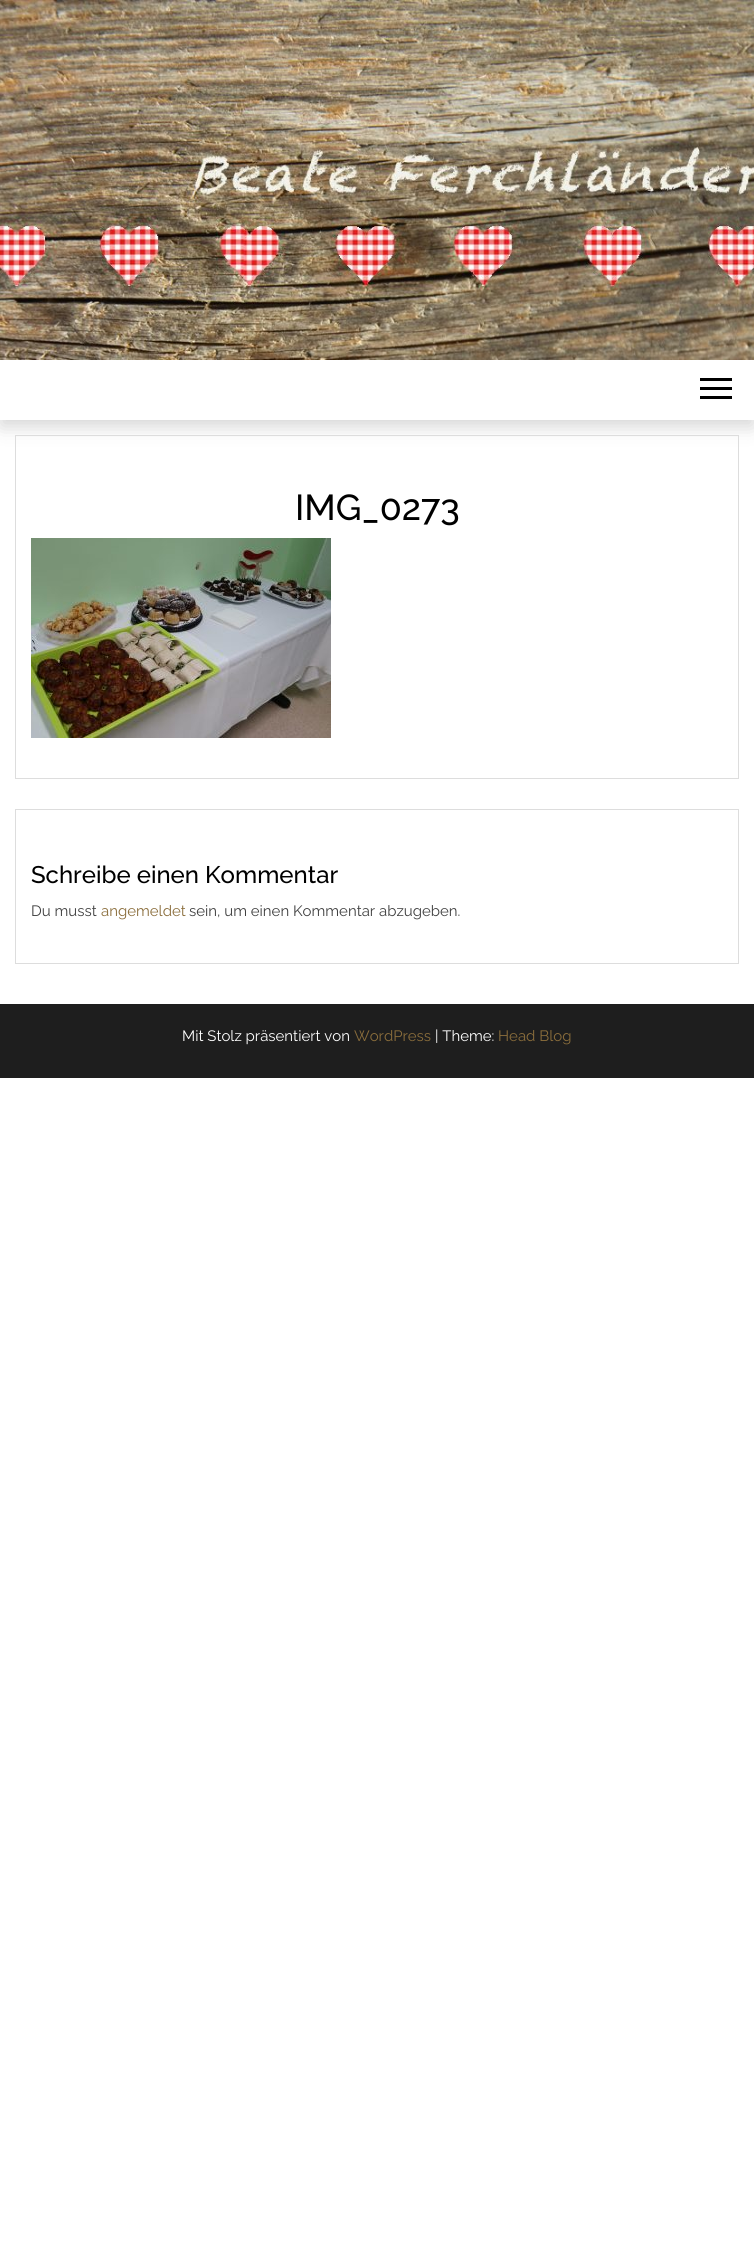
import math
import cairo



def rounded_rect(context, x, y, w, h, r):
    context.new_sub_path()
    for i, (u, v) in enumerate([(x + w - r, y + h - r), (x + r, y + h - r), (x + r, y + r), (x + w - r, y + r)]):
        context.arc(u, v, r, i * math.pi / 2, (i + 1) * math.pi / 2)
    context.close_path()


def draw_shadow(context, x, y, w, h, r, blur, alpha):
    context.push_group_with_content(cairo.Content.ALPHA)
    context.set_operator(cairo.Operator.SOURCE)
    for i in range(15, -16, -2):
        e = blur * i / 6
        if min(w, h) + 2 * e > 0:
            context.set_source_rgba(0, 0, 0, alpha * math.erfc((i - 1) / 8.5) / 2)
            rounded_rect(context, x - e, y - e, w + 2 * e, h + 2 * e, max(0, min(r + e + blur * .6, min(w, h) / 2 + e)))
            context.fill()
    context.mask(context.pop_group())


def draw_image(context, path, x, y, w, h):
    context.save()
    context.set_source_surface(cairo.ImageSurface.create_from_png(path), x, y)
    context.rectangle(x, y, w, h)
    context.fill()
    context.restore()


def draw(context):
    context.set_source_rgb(1, 1, 1)
    context.paint()
    draw_image(context, "images/1.png", 0, 0, 754, 360)
    context.save()
    context.set_fill_rule(cairo.FillRule.EVEN_ODD)
    context.new_path()
    context.move_to(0, 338)
    context.line_to(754, 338)
    context.line_to(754, 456)
    context.line_to(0, 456)
    context.close_path()
    context.move_to(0, 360)
    context.line_to(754, 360)
    context.line_to(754, 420)
    context.line_to(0, 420)
    context.close_path()
    context.clip()
    context.set_source_rgb(0, 0, 0)
    draw_shadow(context, 1, 368, 752, 58, 0, 9.5, 0.17)
    context.restore()
    context.set_source_rgb(0, 0, 0)
    context.rectangle(700, 378, 32, 3)
    context.fill()
    context.rectangle(700, 387, 32, 3)
    context.fill()
    context.rectangle(700, 396, 32, 3)
    context.fill()
    context.rectangle(15.5, 435.5, 723, 343)
    context.set_source_rgb(221 / 255, 221 / 255, 221 / 255)
    context.set_line_width(1)
    context.stroke()
    draw_image(context, "images/2.png", 31, 538, 300, 200)
    context.rectangle(15.5, 809.5, 723, 154)
    context.stroke()
    context.set_source_rgb(30 / 255, 30 / 255, 30 / 255)
    context.rectangle(0, 1004, 754, 74)
    context.fill()
    context.select_font_face("Raleway Medium")
    context.set_font_size(36)
    context.set_source_rgb(0, 0, 0)
    context.move_to(295, 520)
    context.show_text("IMG_0273")
    context.set_font_size(24)
    context.move_to(31, 883)
    context.show_text("Schreibe einen Kommentar")
    context.select_font_face("Raleway")
    context.set_font_size(15)
    context.set_source_rgb(64 / 255, 64 / 255, 64 / 255)
    context.move_to(31, 916)
    context.show_text("Du musst")
    context.set_source_rgb(138 / 255, 109 / 255, 59 / 255)
    context.move_to(101, 916)
    context.show_text("angemeldet")
    context.set_source_rgb(64 / 255, 64 / 255, 64 / 255)
    context.move_to(189, 916)
    context.show_text("sein, um einen Kommentar abzugeben.")
    context.set_source_rgb(1, 1, 1)
    context.move_to(182, 1041)
    context.show_text("Mit Stolz präsentiert von")
    context.set_source_rgb(138 / 255, 109 / 255, 59 / 255)
    context.move_to(354, 1041)
    context.show_text("WordPress")
    context.set_source_rgb(1, 1, 1)
    context.move_to(435, 1041)
    context.show_text("| Theme:")
    context.set_source_rgb(138 / 255, 109 / 255, 59 / 255)
    context.move_to(498, 1041)
    context.show_text("Head Blog")


surface = cairo.ImageSurface(cairo.Format.RGB24, 754, 2246)
context = cairo.Context(surface)
options = cairo.FontOptions()
options.set_hint_metrics(cairo.HintMetrics.OFF)
options.set_hint_style(cairo.HintStyle.NONE)
context.set_font_options(options)
context.set_miter_limit(4)
draw(context)
surface.write_to_png("out.png")
